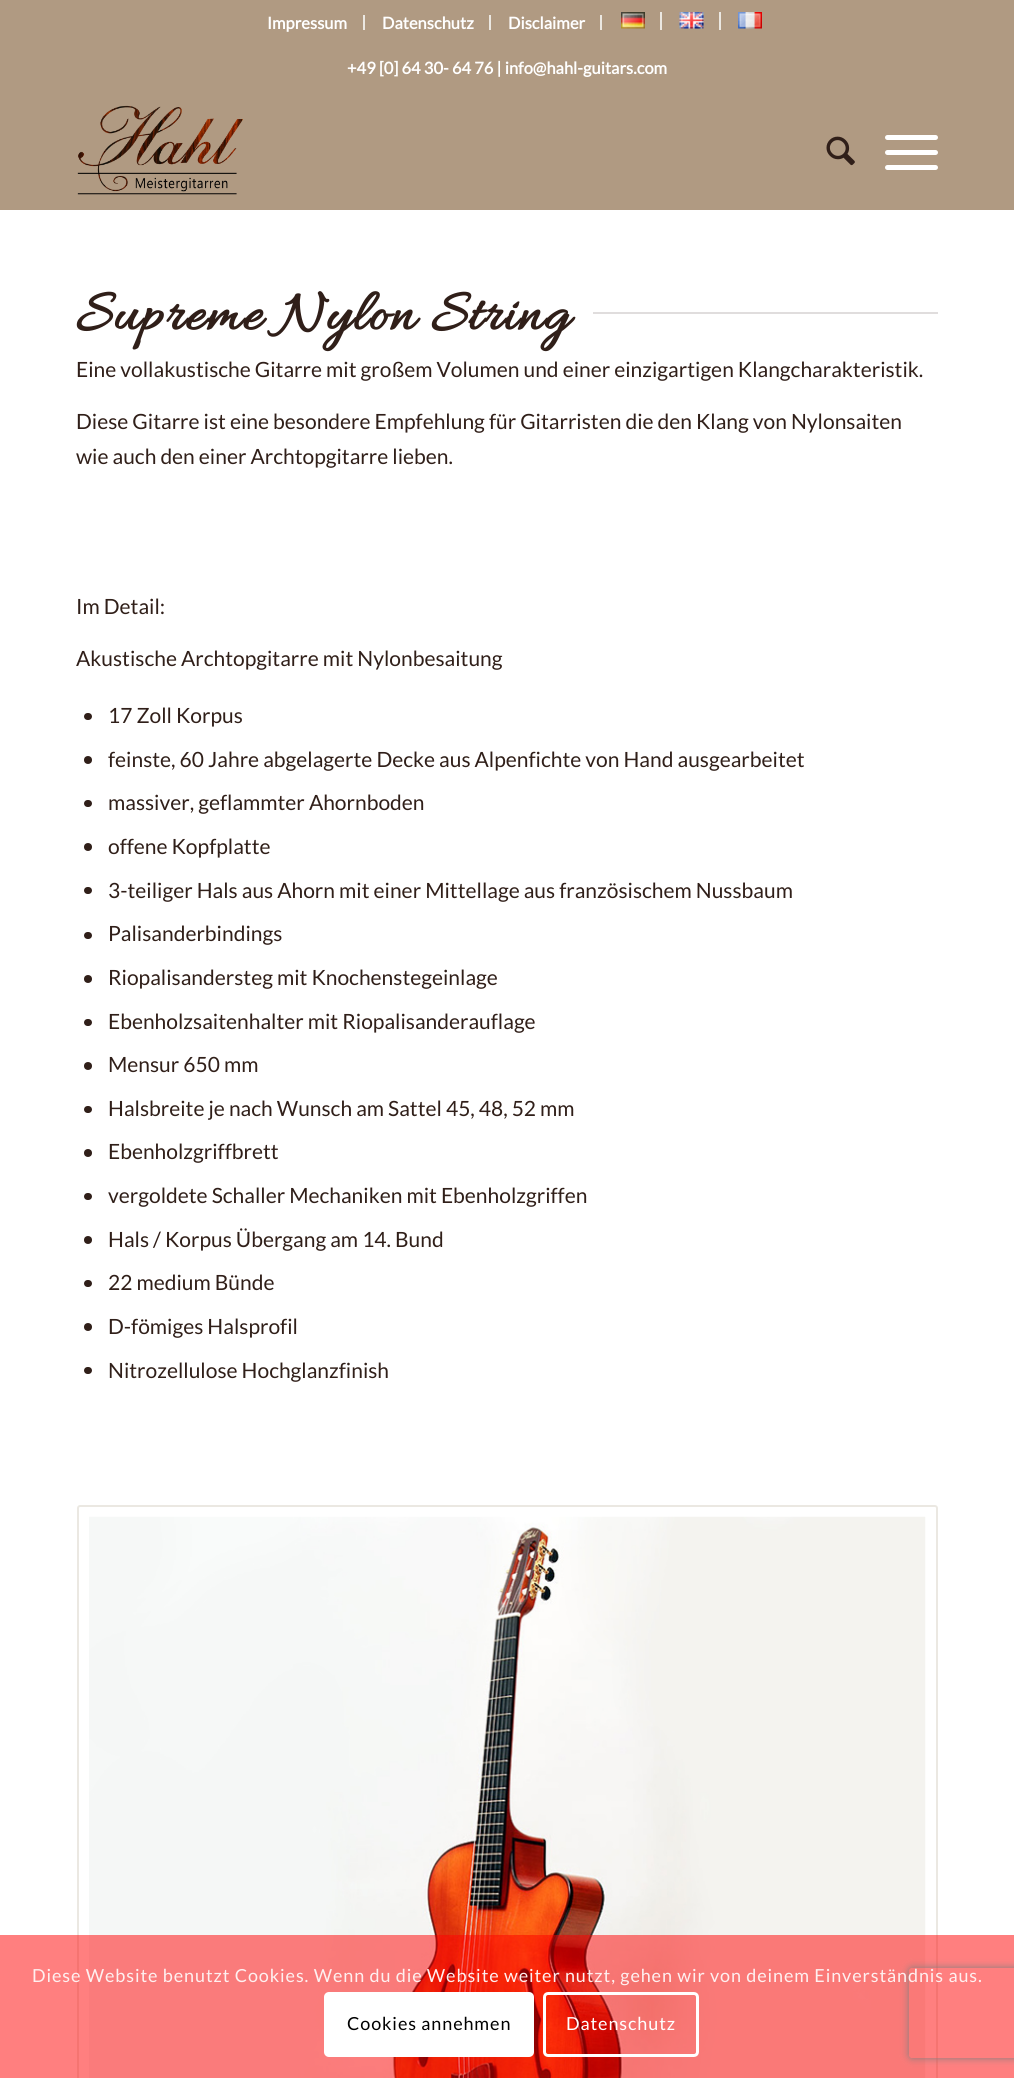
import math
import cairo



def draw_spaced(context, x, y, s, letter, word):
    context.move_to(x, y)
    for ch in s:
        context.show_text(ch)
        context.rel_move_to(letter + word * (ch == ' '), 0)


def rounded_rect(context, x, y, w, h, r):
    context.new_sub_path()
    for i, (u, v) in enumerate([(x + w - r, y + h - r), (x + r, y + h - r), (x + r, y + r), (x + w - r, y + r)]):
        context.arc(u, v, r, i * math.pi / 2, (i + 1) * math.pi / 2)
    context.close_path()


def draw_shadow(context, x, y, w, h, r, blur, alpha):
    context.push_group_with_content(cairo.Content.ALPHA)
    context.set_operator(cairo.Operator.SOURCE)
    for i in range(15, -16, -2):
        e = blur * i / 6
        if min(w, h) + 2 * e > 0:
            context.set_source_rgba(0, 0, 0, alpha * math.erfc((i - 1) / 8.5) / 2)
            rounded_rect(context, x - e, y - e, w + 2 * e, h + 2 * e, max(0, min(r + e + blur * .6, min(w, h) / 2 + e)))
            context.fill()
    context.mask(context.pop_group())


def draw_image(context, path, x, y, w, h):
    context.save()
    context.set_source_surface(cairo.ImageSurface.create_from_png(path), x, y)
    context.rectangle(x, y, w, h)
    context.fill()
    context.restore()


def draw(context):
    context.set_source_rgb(1, 1, 1)
    context.paint()
    context.set_source_rgb(176 / 255, 154 / 255, 130 / 255)
    context.rectangle(0, 0, 1014, 210)
    context.fill()
    context.set_source_rgb(235 / 255, 232 / 255, 226 / 255)
    context.rectangle(363, 15, 2, 15)
    context.fill()
    context.rectangle(489, 15, 2, 15)
    context.fill()
    context.rectangle(600, 15, 2, 15)
    context.fill()
    context.rectangle(660, 12, 2, 18)
    context.fill()
    draw_image(context, "images/1.png", 621, 12, 24, 17)
    context.rectangle(719, 12, 2, 18)
    context.fill()
    draw_image(context, "images/2.png", 679, 12, 25, 17)
    draw_image(context, "images/3.png", 738, 12, 24, 17)
    draw_image(context, "images/4.png", 77, 105, 166, 90)
    draw_image(context, "images/5.png", 826, 136, 29, 30)
    context.set_source_rgb(1, 1, 1)
    rounded_rect(context, 885, 150, 53, 5, 2.5)
    context.fill()
    rounded_rect(context, 885, 135, 53, 5, 2.5)
    context.fill()
    rounded_rect(context, 885, 165, 53, 5, 2.5)
    context.fill()
    context.set_source_rgb(224 / 255, 221 / 255, 221 / 255)
    context.rectangle(593, 312, 345, 2)
    context.fill()
    context.set_source_rgb(48 / 255, 31 / 255, 25 / 255)
    rounded_rect(context, 84, 713, 8, 7, 3.5)
    context.fill()
    context.arc(88, 760, 4, 0, 2 * math.pi)
    context.fill()
    rounded_rect(context, 84, 800, 8, 7, 3.5)
    context.fill()
    context.arc(88, 847, 4, 0, 2 * math.pi)
    context.fill()
    rounded_rect(context, 84, 887, 8, 7, 3.5)
    context.fill()
    rounded_rect(context, 84, 932, 8, 7, 3.5)
    context.fill()
    context.arc(88, 979, 4, 0, 2 * math.pi)
    context.fill()
    rounded_rect(context, 84, 1019, 8, 7, 3.5)
    context.fill()
    context.arc(88, 1066, 4, 0, 2 * math.pi)
    context.fill()
    rounded_rect(context, 84, 1106, 8, 7, 3.5)
    context.fill()
    context.arc(88, 1153, 4, 0, 2 * math.pi)
    context.fill()
    rounded_rect(context, 84, 1193, 8, 7, 3.5)
    context.fill()
    context.arc(88, 1240, 4, 0, 2 * math.pi)
    context.fill()
    rounded_rect(context, 84, 1280, 8, 7, 3.5)
    context.fill()
    context.arc(88, 1327, 4, 0, 2 * math.pi)
    context.fill()
    rounded_rect(context, 84, 1367, 8, 7, 3.5)
    context.fill()
    context.new_path()
    context.move_to(80, 1506)
    context.line_to(935, 1506)
    context.curve_to(936, 1506, 937, 1507, 937, 1508)
    context.line_to(937, 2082)
    context.line_to(78, 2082)
    context.line_to(78, 1508)
    context.curve_to(78, 1507, 79, 1506, 80, 1506)
    context.close_path()
    context.set_source_rgb(235 / 255, 232 / 255, 226 / 255)
    context.stroke()
    draw_image(context, "images/6.png", 89, 1516, 837, 562)
    context.set_source_rgba(1, 0, 0, 0.5)
    context.rectangle(0, 1935, 1014, 143)
    context.fill()
    context.save()
    context.set_fill_rule(cairo.FillRule.EVEN_ODD)
    context.new_path()
    context.move_to(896, 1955)
    context.line_to(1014, 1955)
    context.line_to(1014, 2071)
    context.line_to(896, 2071)
    context.close_path()
    context.move_to(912, 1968)
    context.line_to(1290, 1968)
    context.curve_to(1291.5, 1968, 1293, 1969.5, 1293, 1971)
    context.line_to(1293, 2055)
    context.curve_to(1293, 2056.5, 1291.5, 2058, 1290, 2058)
    context.line_to(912, 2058)
    context.curve_to(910.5, 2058, 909, 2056.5, 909, 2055)
    context.line_to(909, 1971)
    context.curve_to(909, 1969.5, 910.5, 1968, 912, 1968)
    context.close_path()
    context.clip()
    context.set_source_rgb(128 / 255, 128 / 255, 128 / 255)
    draw_shadow(context, 909, 1968, 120, 90, 3, 4, 1)
    context.restore()
    context.set_source_rgb(1, 1, 1)
    rounded_rect(context, 324, 1992, 210, 65, 5)
    context.fill()
    rounded_rect(context, 544.5, 1993.5, 153, 62, 3.5)
    context.set_line_width(3)
    context.stroke()
    context.select_font_face("Lato", cairo.FontSlant.NORMAL, cairo.FontWeight.BOLD)
    context.set_font_size(16.5)
    context.move_to(267, 29)
    context.show_text("Impressum")
    context.move_to(382, 29)
    context.show_text("Datenschutz")
    context.move_to(508, 29)
    context.show_text("Disclaimer")
    context.move_to(347, 74)
    context.show_text("+49 [0] 64 30- 64 76 | info@hahl-guitars.com")
    context.select_font_face("Allura", cairo.FontSlant.NORMAL, cairo.FontWeight.BOLD)
    context.set_font_size(60)
    context.set_source_rgb(48 / 255, 31 / 255, 25 / 255)
    draw_spaced(context, 76, 329, "Supreme Nylon String", 1.5, 0)
    context.select_font_face("Lato")
    context.set_font_size(21)
    context.move_to(76, 377)
    context.show_text("Eine vollakustische Gitarre mit großem Volumen und einer einzigartigen Klangcharakteristik.")
    context.move_to(76, 429)
    context.show_text("Diese Gitarre ist eine besondere Empfehlung für Gitarristen die den Klang von Nylonsaiten")
    context.move_to(76, 464)
    context.show_text("wie auch den einer Archtopgitarre lieben.")
    context.move_to(76, 614)
    context.show_text("Im Detail:")
    context.move_to(76, 666)
    context.show_text("Akustische Archtopgitarre mit Nylonbesaitung")
    context.move_to(108, 723)
    context.show_text("17 Zoll Korpus")
    context.move_to(108, 767)
    context.show_text("feinste, 60 Jahre abgelagerte Decke aus Alpenfichte von Hand ausgearbeitet")
    context.move_to(108, 810)
    context.show_text("massiver, geflammter Ahornboden")
    context.move_to(108, 854)
    context.show_text("offene Kopfplatte")
    context.move_to(108, 898)
    context.show_text("3-teiliger Hals aus Ahorn mit einer Mittellage aus französischem Nussbaum")
    context.move_to(108, 941)
    context.show_text("Palisanderbindings")
    context.move_to(108, 985)
    context.show_text("Riopalisandersteg mit Knochenstegeinlage")
    context.move_to(108, 1029)
    context.show_text("Ebenholzsaitenhalter mit Riopalisanderauflage")
    context.move_to(108, 1072)
    context.show_text("Mensur 650 mm")
    context.move_to(108, 1116)
    context.show_text("Halsbreite je nach Wunsch am Sattel 45, 48, 52 mm")
    context.move_to(108, 1159)
    context.show_text("Ebenholzgriffbrett")
    context.move_to(108, 1203)
    context.show_text("vergoldete Schaller Mechaniken mit Ebenholzgriffen")
    context.move_to(108, 1247)
    context.show_text("Hals / Korpus Übergang am 14. Bund")
    context.move_to(108, 1290)
    context.show_text("22 medium Bünde")
    context.move_to(108, 1334)
    context.show_text("D-fömiges Halsprofil")
    context.move_to(108, 1378)
    context.show_text("Nitrozellulose Hochglanzfinish")
    context.set_font_size(18)
    context.set_source_rgb(254 / 255, 240 / 255, 240 / 255)
    draw_spaced(context, 32, 1982, "Diese Website benutzt Cookies. Wenn du die Website weiter nutzt, gehen wir von deinem Einverständnis aus.", 0.9, 0)
    context.set_source_rgb(0, 0, 0)
    draw_spaced(context, 347, 2030, "Cookies annehmen", 0.9, 0)
    context.set_source_rgb(1, 1, 1)
    draw_spaced(context, 566, 2030, "Datenschutz", 0.9, 0)


surface = cairo.ImageSurface(cairo.Format.RGB24, 1014, 2078)
context = cairo.Context(surface)
options = cairo.FontOptions()
options.set_hint_metrics(cairo.HintMetrics.OFF)
options.set_hint_style(cairo.HintStyle.NONE)
context.set_font_options(options)
context.set_miter_limit(4)
draw(context)
surface.write_to_png("out.png")
